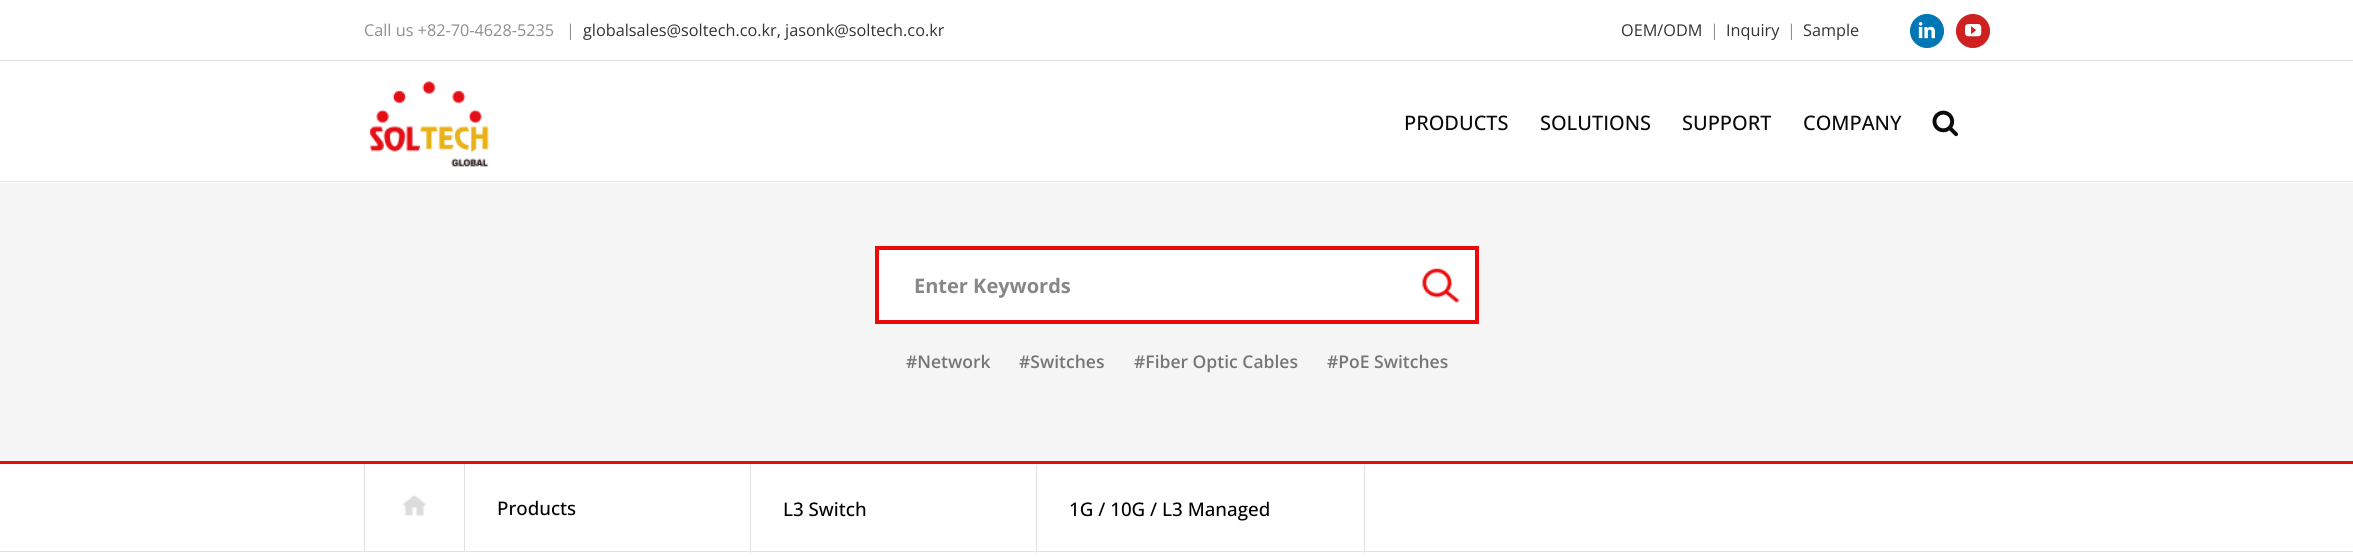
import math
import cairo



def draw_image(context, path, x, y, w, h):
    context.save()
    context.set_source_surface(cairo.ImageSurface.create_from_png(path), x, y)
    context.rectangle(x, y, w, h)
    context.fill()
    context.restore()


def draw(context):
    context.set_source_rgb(1, 1, 1)
    context.paint()
    context.set_source_rgb(226 / 255, 226 / 255, 226 / 255)
    context.rectangle(0, 60, 2353, 1)
    context.fill()
    context.set_source_rgb(0, 119 / 255, 181 / 255)
    context.arc(1927, 31, 16.5, 0, 2 * math.pi)
    context.fill_preserve()
    context.set_line_width(1)
    context.stroke()
    draw_image(context, "images/1.png", 1918, 22, 17, 17)
    context.set_source_rgb(205 / 255, 32 / 255, 31 / 255)
    context.arc(1973, 31, 16.5, 0, 2 * math.pi)
    context.fill_preserve()
    context.stroke()
    draw_image(context, "images/2.png", 1965, 24, 17, 13)
    context.set_source_rgb(226 / 255, 226 / 255, 226 / 255)
    context.rectangle(0, 181, 2353, 1)
    context.fill()
    draw_image(context, "images/3.png", 369, 81, 120, 86)
    draw_image(context, "images/4.png", 1932, 110, 26, 27)
    context.set_source_rgb(245 / 255, 245 / 255, 245 / 255)
    context.rectangle(0, 183, 2353, 278)
    context.fill()
    context.set_source_rgb(1, 1, 1)
    context.rectangle(877, 248, 600, 74)
    context.fill_preserve()
    context.set_source_rgb(234 / 255, 10 / 255, 10 / 255)
    context.set_line_width(4)
    context.stroke()
    draw_image(context, "images/5.png", 1422, 268, 37, 35)
    context.rectangle(0, 461, 2353, 3)
    context.fill()
    context.set_source_rgb(225 / 255, 225 / 255, 225 / 255)
    context.rectangle(0, 551, 2353, 1)
    context.fill()
    context.rectangle(364, 464, 1, 87)
    context.fill()
    draw_image(context, "images/6.png", 402, 495, 25, 21)
    context.rectangle(750, 464, 1, 89)
    context.fill()
    context.rectangle(464, 464, 1, 87)
    context.fill()
    context.rectangle(1036, 465, 1, 88)
    context.fill()
    context.rectangle(1364, 465, 1, 88)
    context.fill()
    context.select_font_face("Open Sans")
    context.set_font_size(16.25)
    context.set_source_rgb(144 / 255, 143 / 255, 143 / 255)
    context.move_to(364, 36)
    context.show_text("Call us +82-70-4628-5235")
    context.move_to(566, 36)
    context.show_text("|")
    context.set_source_rgb(51 / 255, 51 / 255, 51 / 255)
    context.move_to(583, 36)
    context.show_text("globalsales@soltech.co.kr, jasonk@soltech.co.kr")
    context.move_to(1621, 36)
    context.show_text("OEM/ODM")
    context.set_source_rgb(144 / 255, 143 / 255, 143 / 255)
    context.move_to(1710, 36)
    context.show_text("|")
    context.set_source_rgb(51 / 255, 51 / 255, 51 / 255)
    context.move_to(1726, 36)
    context.show_text("Inquiry")
    context.set_source_rgb(144 / 255, 143 / 255, 143 / 255)
    context.move_to(1787, 36)
    context.show_text("|")
    context.set_source_rgb(51 / 255, 51 / 255, 51 / 255)
    context.move_to(1803, 36)
    context.show_text("Sample")
    context.select_font_face("Open Sans Medium")
    context.set_font_size(20)
    context.set_source_rgb(10 / 255, 10 / 255, 10 / 255)
    context.move_to(1404, 130)
    context.show_text("PRODUCTS")
    context.move_to(1540, 130)
    context.show_text("SOLUTIONS")
    context.move_to(1682, 130)
    context.show_text("SUPPORT")
    context.move_to(1803, 130)
    context.show_text("COMPANY")
    context.select_font_face("Open Sans", cairo.FontSlant.NORMAL, cairo.FontWeight.BOLD)
    context.set_source_rgb(135 / 255, 135 / 255, 135 / 255)
    context.move_to(914, 293)
    context.show_text("Enter Keywords")
    context.select_font_face("Open Sans SemiBold")
    context.set_font_size(17.5)
    context.set_source_rgb(118 / 255, 118 / 255, 118 / 255)
    context.move_to(906, 368)
    context.show_text("#Network")
    context.move_to(1019, 368)
    context.show_text("#Switches")
    context.move_to(1134, 368)
    context.show_text("#Fiber Optic Cables")
    context.move_to(1327, 368)
    context.show_text("#PoE Switches")
    context.select_font_face("Open Sans Medium")
    context.set_font_size(18.75)
    context.set_source_rgb(0, 0, 0)
    context.move_to(497, 515)
    context.show_text("Products")
    context.move_to(783, 516)
    context.show_text("L3 Switch")
    context.move_to(1069, 516)
    context.show_text("1G / 10G / L3 Managed")


surface = cairo.ImageSurface(cairo.Format.RGB24, 2353, 557)
context = cairo.Context(surface)
options = cairo.FontOptions()
options.set_hint_metrics(cairo.HintMetrics.OFF)
options.set_hint_style(cairo.HintStyle.NONE)
context.set_font_options(options)
context.set_miter_limit(4)
draw(context)
surface.write_to_png("out.png")
